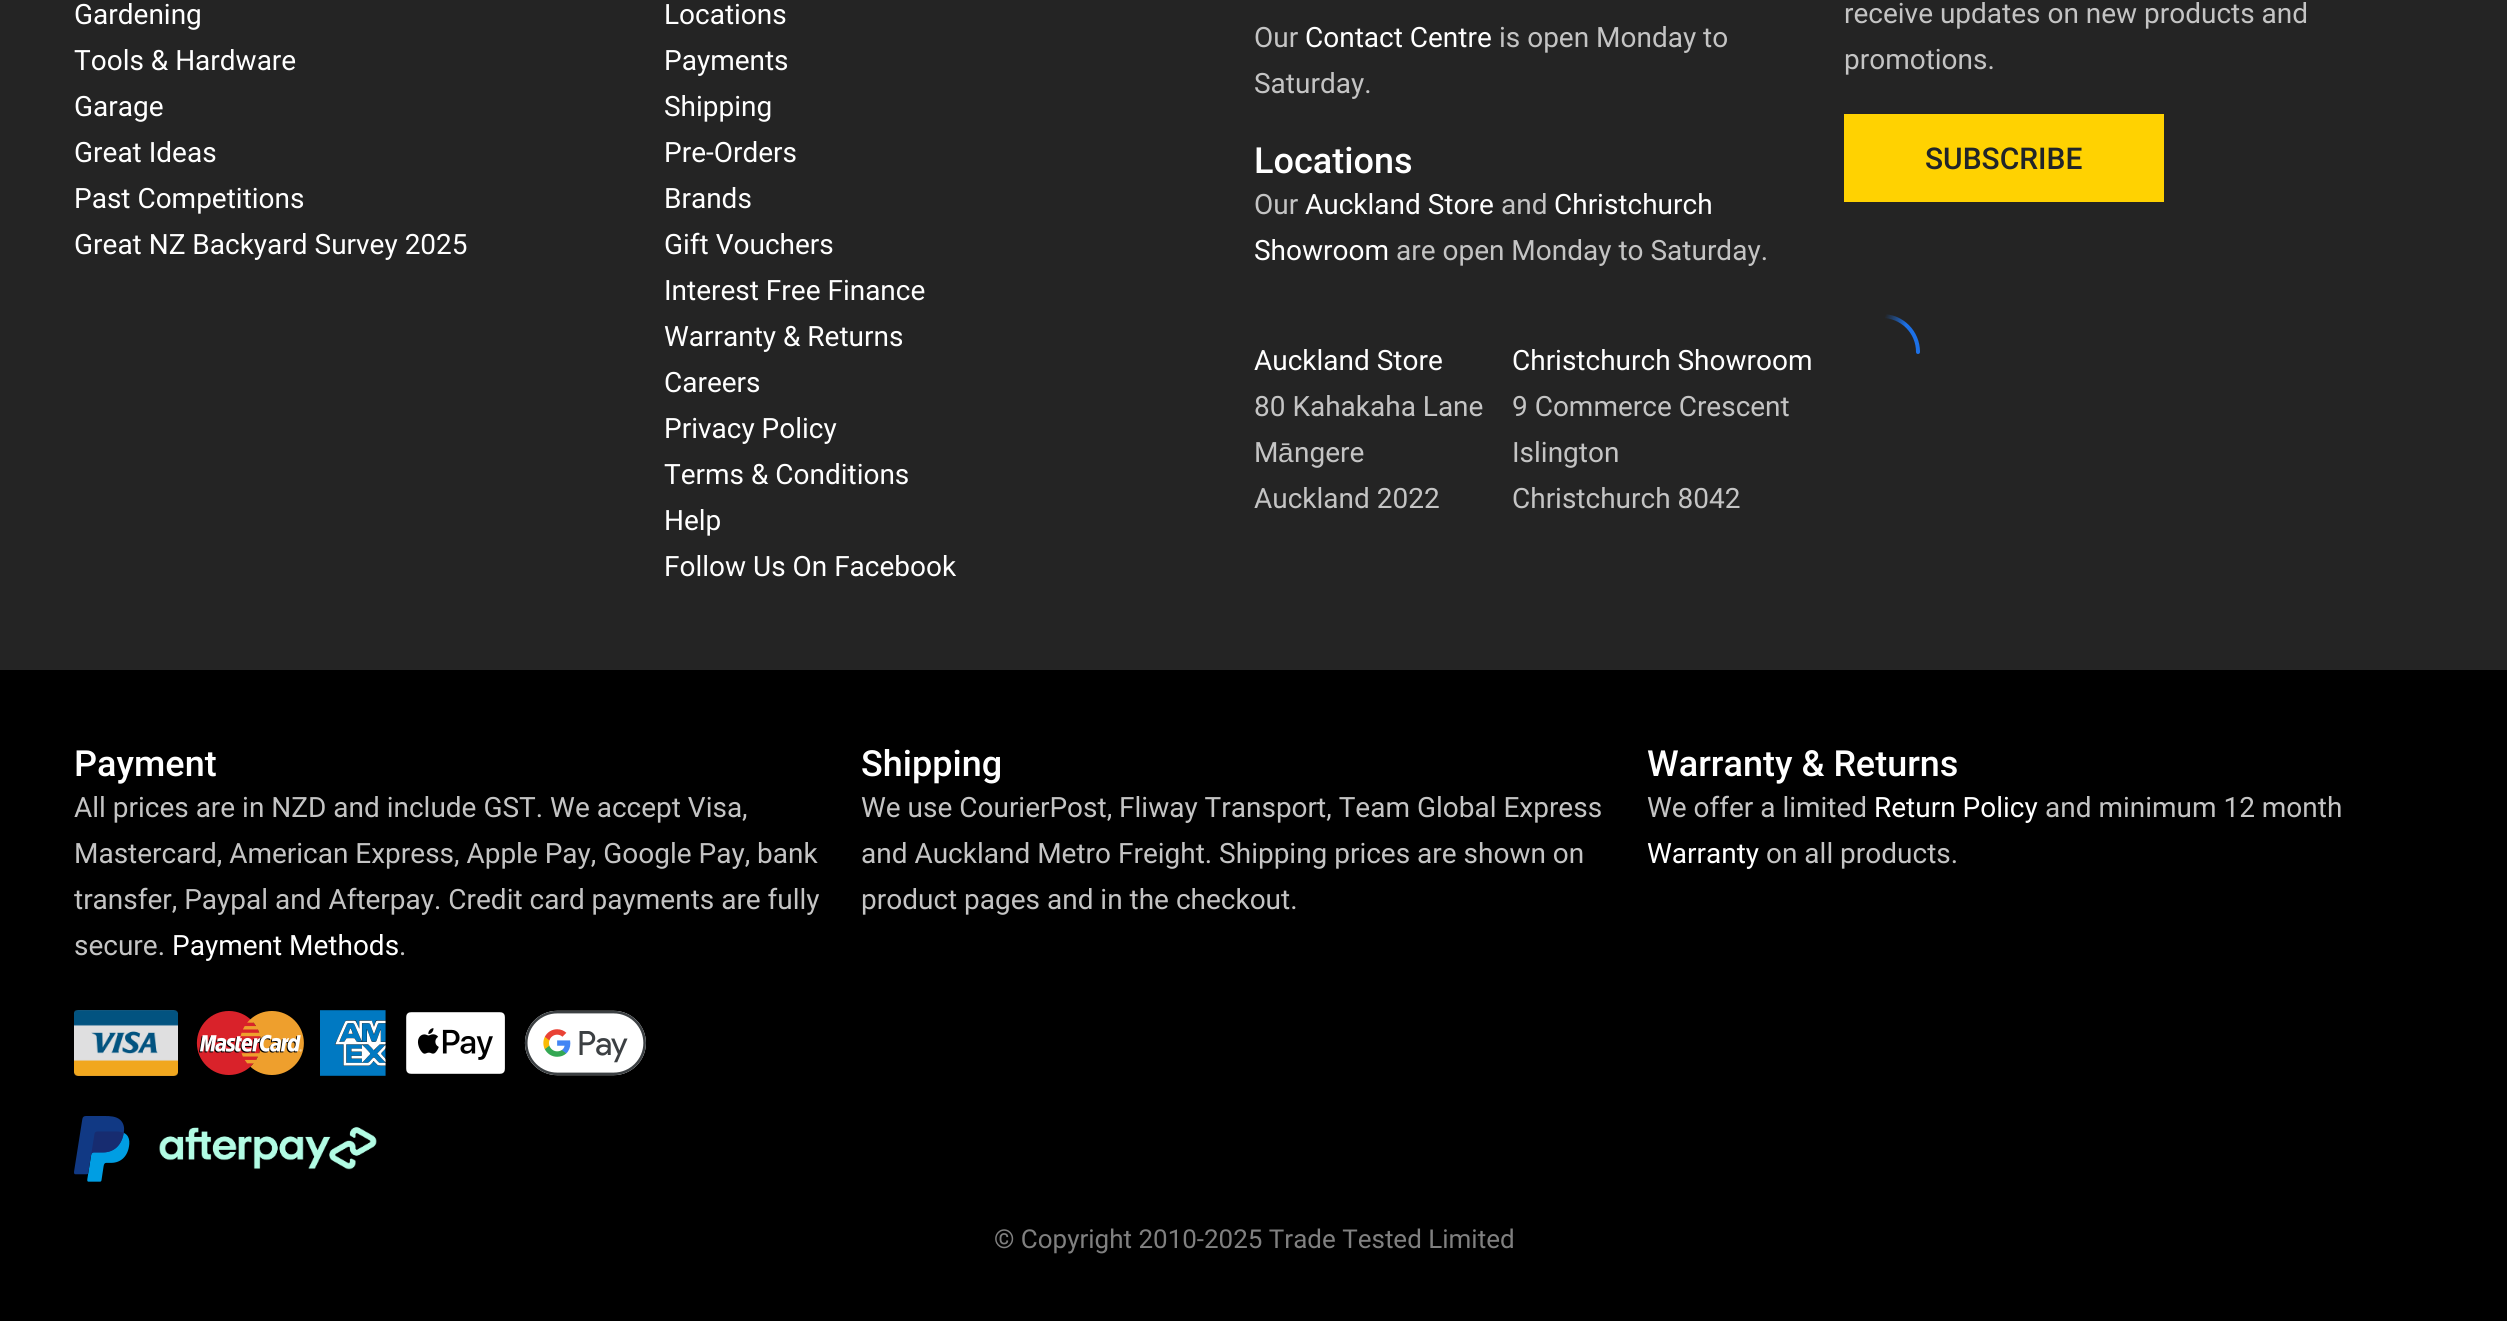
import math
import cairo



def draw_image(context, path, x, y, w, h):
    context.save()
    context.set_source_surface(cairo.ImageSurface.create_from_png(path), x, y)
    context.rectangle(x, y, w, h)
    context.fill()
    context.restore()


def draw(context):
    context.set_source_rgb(36 / 255, 36 / 255, 36 / 255)
    context.paint()
    context.set_source_rgb(1, 210 / 255, 1 / 255)
    context.rectangle(1844, 114, 320, 88)
    context.fill()
    context.new_path()
    context.move_to(1918, 352)
    context.curve_to(1918, 332, 1902, 316, 1882, 316)
    gradient = cairo.LinearGradient(1885, 316, 1906, 325)
    gradient.add_color_stop_rgba(0, 36 / 255, 36 / 255, 36 / 255, 1)
    gradient.add_color_stop_rgba(0.63, 32 / 255, 85 / 255, 159 / 255, 1)
    gradient.add_color_stop_rgba(1, 29 / 255, 113 / 255, 231 / 255, 1)
    context.set_source(gradient)
    context.set_line_width(4)
    context.stroke()
    context.set_source_rgb(29 / 255, 113 / 255, 231 / 255)
    context.arc(1918, 352, 2, 0, 2 * math.pi)
    context.fill()
    context.set_source_rgb(0, 0, 0)
    context.rectangle(0, 670, 2507, 651)
    context.fill()
    draw_image(context, "images/1.png", 74, 1010, 104, 66)
    draw_image(context, "images/2.png", 196, 1011, 108, 64)
    draw_image(context, "images/3.png", 320, 1010, 66, 66)
    draw_image(context, "images/4.png", 406, 1012, 99, 62)
    draw_image(context, "images/5.png", 524, 1010, 122, 66)
    draw_image(context, "images/6.png", 74, 1116, 56, 66)
    draw_image(context, "images/7.png", 159, 1126, 218, 44)
    context.select_font_face("Roboto")
    context.set_font_size(28)
    context.set_source_rgb(1, 1, 1)
    context.move_to(74, 24)
    context.show_text("Gardening")
    context.move_to(74, 70)
    context.show_text("Tools & Hardware")
    context.move_to(74, 116)
    context.show_text("Garage")
    context.move_to(74, 162)
    context.show_text("Great Ideas")
    context.move_to(74, 208)
    context.show_text("Past Competitions")
    context.move_to(74, 254)
    context.show_text("Great NZ Backyard Survey 2025")
    context.move_to(664, 24)
    context.show_text("Locations")
    context.move_to(664, 70)
    context.show_text("Payments")
    context.move_to(664, 116)
    context.show_text("Shipping")
    context.move_to(664, 162)
    context.show_text("Pre-Orders")
    context.move_to(664, 208)
    context.show_text("Brands")
    context.move_to(664, 254)
    context.show_text("Gift Vouchers")
    context.move_to(664, 300)
    context.show_text("Interest Free Finance")
    context.move_to(664, 346)
    context.show_text("Warranty & Returns")
    context.move_to(664, 392)
    context.show_text("Careers")
    context.move_to(664, 438)
    context.show_text("Privacy Policy")
    context.move_to(664, 484)
    context.show_text("Terms & Conditions")
    context.move_to(664, 530)
    context.show_text("Help")
    context.move_to(664, 576)
    context.show_text("Follow Us On Facebook")
    context.set_source_rgb(196 / 255, 196 / 255, 196 / 255)
    context.move_to(1254, 47)
    context.show_text("Our")
    context.set_source_rgb(1, 1, 1)
    context.move_to(1305, 47)
    context.show_text("Contact Centre")
    context.set_source_rgb(196 / 255, 196 / 255, 196 / 255)
    context.move_to(1499, 47)
    context.show_text("is open Monday to")
    context.move_to(1254, 93)
    context.show_text("Saturday.")
    context.select_font_face("Roboto Medium")
    context.set_font_size(36)
    context.set_source_rgb(1, 1, 1)
    context.move_to(1254, 173)
    context.show_text("Locations")
    context.select_font_face("Roboto")
    context.set_font_size(28)
    context.set_source_rgb(196 / 255, 196 / 255, 196 / 255)
    context.move_to(1254, 214)
    context.show_text("Our")
    context.set_source_rgb(1, 1, 1)
    context.move_to(1305, 214)
    context.show_text("Auckland Store")
    context.set_source_rgb(196 / 255, 196 / 255, 196 / 255)
    context.move_to(1501, 214)
    context.show_text("and")
    context.set_source_rgb(1, 1, 1)
    context.move_to(1554, 214)
    context.show_text("Christchurch")
    context.move_to(1254, 260)
    context.show_text("Showroom")
    context.set_source_rgb(196 / 255, 196 / 255, 196 / 255)
    context.move_to(1396, 260)
    context.show_text("are open Monday to Saturday.")
    context.set_source_rgb(1, 1, 1)
    context.move_to(1254, 370)
    context.show_text("Auckland Store")
    context.set_source_rgb(196 / 255, 196 / 255, 196 / 255)
    context.move_to(1254, 416)
    context.show_text("80 Kahakaha Lane")
    context.move_to(1254, 462)
    context.show_text("M")
    context.select_font_face("Liberation Sans")
    context.move_to(1278, 462)
    context.show_text("ā")
    context.select_font_face("Roboto")
    context.move_to(1294, 462)
    context.show_text("ngere")
    context.move_to(1254, 508)
    context.show_text("Auckland 2022")
    context.set_source_rgb(1, 1, 1)
    context.move_to(1512, 370)
    context.show_text("Christchurch Showroom")
    context.set_source_rgb(196 / 255, 196 / 255, 196 / 255)
    context.move_to(1512, 416)
    context.show_text("9 Commerce Crescent")
    context.move_to(1512, 462)
    context.show_text("Islington")
    context.move_to(1512, 508)
    context.show_text("Christchurch 8042")
    context.move_to(1844, 23)
    context.show_text("receive updates on new products and")
    context.move_to(1844, 69)
    context.show_text("promotions.")
    context.select_font_face("Roboto Medium")
    context.set_font_size(30)
    context.set_source_rgb(33 / 255, 37 / 255, 41 / 255)
    context.move_to(1925, 169)
    context.show_text("SUBSCRIBE")
    context.set_font_size(36)
    context.set_source_rgb(1, 1, 1)
    context.move_to(74, 776)
    context.show_text("Payment")
    context.select_font_face("Roboto")
    context.set_font_size(28)
    context.set_source_rgb(196 / 255, 196 / 255, 196 / 255)
    context.move_to(74, 817)
    context.show_text("All prices are in NZD and include GST. We accept Visa,")
    context.move_to(74, 863)
    context.show_text("Mastercard, American Express, Apple Pay, Google Pay, bank")
    context.move_to(74, 909)
    context.show_text("transfer, Paypal and Afterpay. Credit card payments are fully")
    context.move_to(74, 955)
    context.show_text("secure.")
    context.set_source_rgb(1, 1, 1)
    context.move_to(172, 955)
    context.show_text("Payment Methods")
    context.set_source_rgb(196 / 255, 196 / 255, 196 / 255)
    context.move_to(399, 955)
    context.show_text(".")
    context.select_font_face("Roboto Medium")
    context.set_font_size(36)
    context.set_source_rgb(1, 1, 1)
    context.move_to(861, 776)
    context.show_text("Shipping")
    context.select_font_face("Roboto")
    context.set_font_size(28)
    context.set_source_rgb(196 / 255, 196 / 255, 196 / 255)
    context.move_to(861, 817)
    context.show_text("We use CourierPost, Fliway Transport, Team Global Express")
    context.move_to(861, 863)
    context.show_text("and Auckland Metro Freight. Shipping prices are shown on")
    context.move_to(861, 909)
    context.show_text("product pages and in the checkout.")
    context.select_font_face("Roboto Medium")
    context.set_font_size(36)
    context.set_source_rgb(1, 1, 1)
    context.move_to(1647, 776)
    context.show_text("Warranty & Returns")
    context.select_font_face("Roboto")
    context.set_font_size(28)
    context.set_source_rgb(196 / 255, 196 / 255, 196 / 255)
    context.move_to(1647, 817)
    context.show_text("We offer a limited")
    context.set_source_rgb(1, 1, 1)
    context.move_to(1874, 817)
    context.show_text("Return Policy")
    context.set_source_rgb(196 / 255, 196 / 255, 196 / 255)
    context.move_to(2045, 817)
    context.show_text("and minimum 12 month")
    context.set_source_rgb(1, 1, 1)
    context.move_to(1647, 863)
    context.show_text("Warranty")
    context.set_source_rgb(196 / 255, 196 / 255, 196 / 255)
    context.move_to(1766, 863)
    context.show_text("on all products.")
    context.set_font_size(26)
    context.set_source_rgb(128 / 255, 128 / 255, 128 / 255)
    context.move_to(994, 1248)
    context.show_text("© Copyright 2010-2025 Trade Tested Limited")


surface = cairo.ImageSurface(cairo.Format.RGB24, 2507, 1321)
context = cairo.Context(surface)
options = cairo.FontOptions()
options.set_hint_metrics(cairo.HintMetrics.OFF)
options.set_hint_style(cairo.HintStyle.NONE)
context.set_font_options(options)
context.set_miter_limit(4)
draw(context)
surface.write_to_png("out.png")
